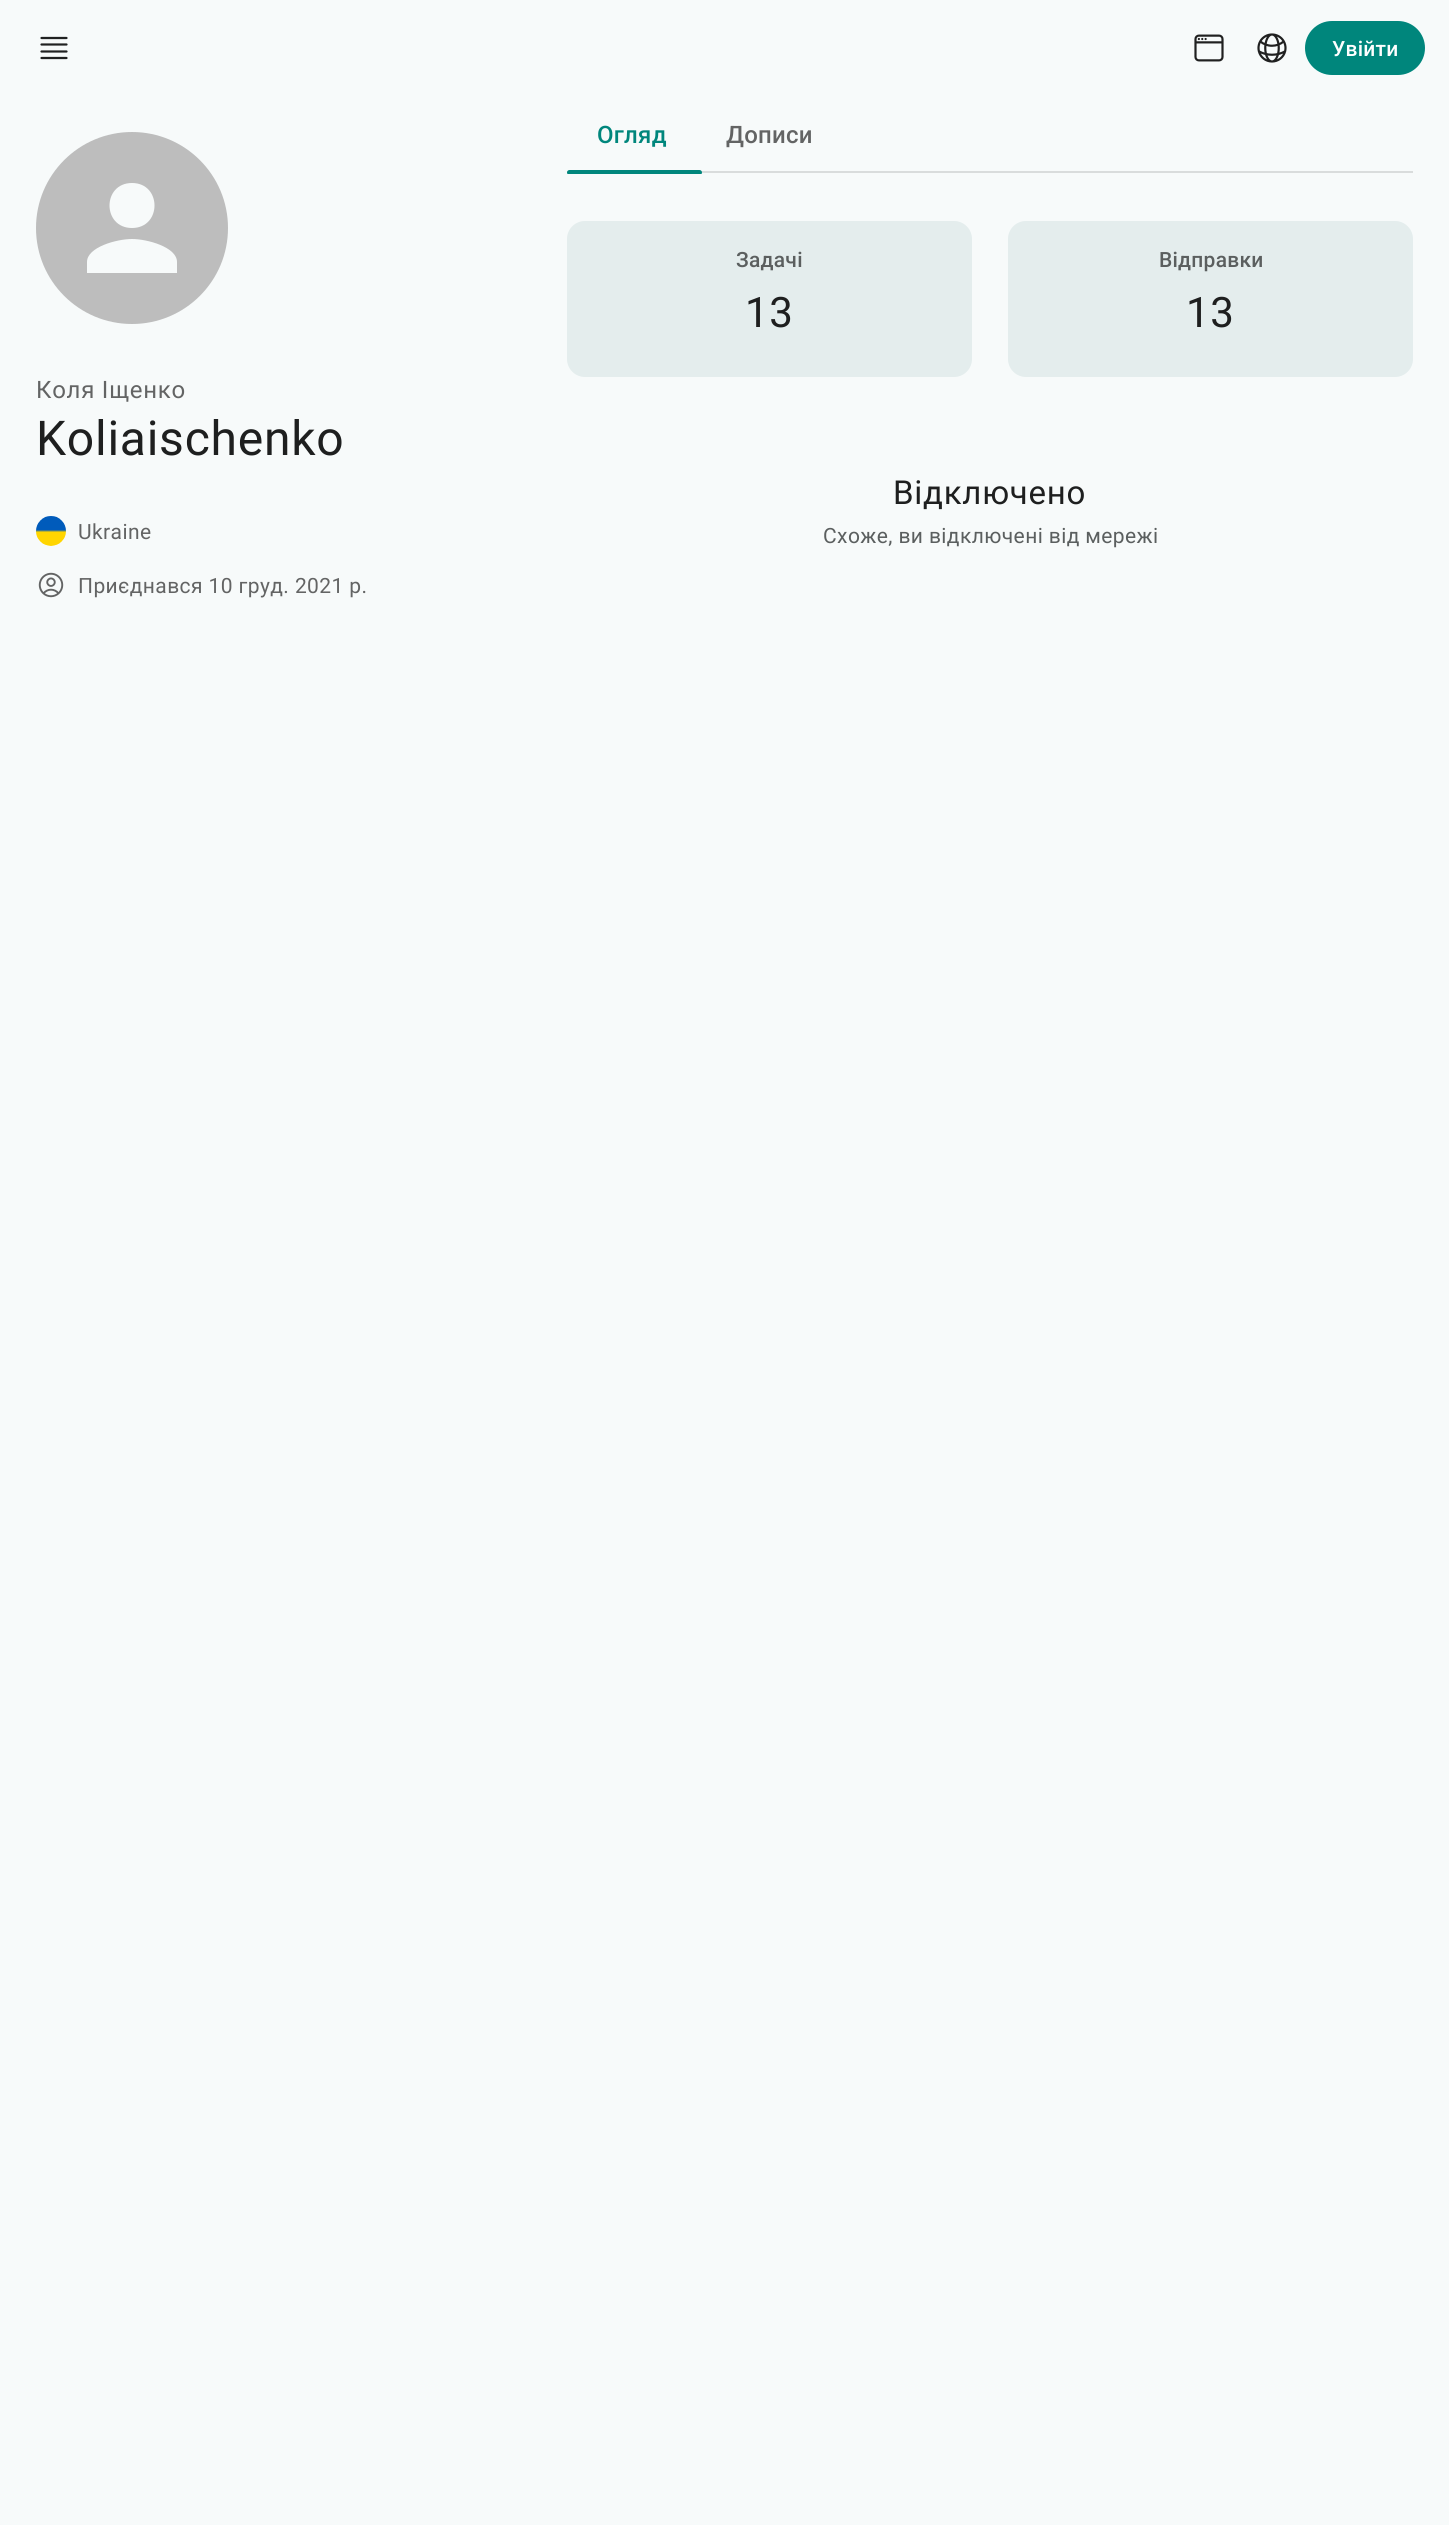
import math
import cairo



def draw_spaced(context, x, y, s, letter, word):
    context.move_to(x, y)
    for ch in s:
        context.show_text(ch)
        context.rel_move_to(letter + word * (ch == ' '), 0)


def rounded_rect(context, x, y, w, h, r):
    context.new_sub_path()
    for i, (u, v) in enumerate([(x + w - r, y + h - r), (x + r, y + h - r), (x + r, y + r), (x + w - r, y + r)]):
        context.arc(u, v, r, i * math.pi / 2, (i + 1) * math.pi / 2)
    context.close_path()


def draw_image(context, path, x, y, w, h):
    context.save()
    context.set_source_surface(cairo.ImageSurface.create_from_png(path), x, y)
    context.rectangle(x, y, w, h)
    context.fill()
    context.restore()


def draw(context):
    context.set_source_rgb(247 / 255, 250 / 255, 250 / 255)
    context.paint()
    context.new_path()
    context.move_to(41.5, 38)
    context.line_to(66.5, 38)
    context.move_to(41.5, 44.5)
    context.line_to(66.5, 44.5)
    context.move_to(41.5, 51.5)
    context.line_to(66.5, 51.5)
    context.move_to(41.5, 58)
    context.line_to(66.5, 58)
    context.set_source_rgb(32 / 255, 33 / 255, 33 / 255)
    context.set_line_width(2.2)
    context.set_line_cap(cairo.LineCap.ROUND)
    context.set_line_join(cairo.LineJoin.ROUND)
    context.stroke()
    draw_image(context, "images/1.png", 1194, 34, 30, 28)
    draw_image(context, "images/2.png", 1257, 33, 30, 30)
    context.set_source_rgb(0, 134 / 255, 124 / 255)
    rounded_rect(context, 1305, 21, 120, 54, 27)
    context.fill()
    context.set_source_rgb(189 / 255, 189 / 255, 189 / 255)
    context.arc(132, 228, 96, 0, 2 * math.pi)
    context.fill()
    context.set_source_rgb(247 / 255, 250 / 255, 250 / 255)
    context.new_path()
    context.move_to(132, 228)
    context.curve_to(162, 228, 162, 183, 132, 183)
    context.curve_to(102, 183, 102, 228, 132, 228)
    context.close_path()
    context.move_to(132, 239)
    context.curve_to(117, 239, 87, 247, 87, 262)
    context.line_to(87, 273)
    context.line_to(177, 273)
    context.line_to(177, 262)
    context.curve_to(177, 247, 147, 239, 132, 239)
    context.close_path()
    context.fill()
    draw_image(context, "images/3.png", 36, 516, 30, 30)
    draw_image(context, "images/4.png", 38, 572, 26, 26)
    context.set_source_rgb(217 / 255, 220 / 255, 220 / 255)
    context.rectangle(567, 171, 846, 2)
    context.fill()
    context.save()
    context.rectangle(567, 96, 846, 78)
    context.clip()
    context.set_source_rgb(0, 134 / 255, 124 / 255)
    rounded_rect(context, 567, 170, 135, 5, 2.5)
    context.fill()
    context.restore()
    context.set_source_rgb(228 / 255, 237 / 255, 237 / 255)
    rounded_rect(context, 567, 221, 405, 156, 18)
    context.fill()
    rounded_rect(context, 1008, 221, 405, 156, 18)
    context.fill()
    context.select_font_face("Roboto Medium")
    context.set_font_size(21)
    context.set_source_rgb(1, 1, 1)
    draw_spaced(context, 1332, 56, "Увійти", 0.25, 0)
    context.select_font_face("Roboto")
    context.set_font_size(24)
    context.set_source_rgb(99 / 255, 100 / 255, 100 / 255)
    draw_spaced(context, 36, 398, "Коля Іщенко", 0.75, 0)
    context.set_font_size(48)
    context.set_source_rgb(30 / 255, 31 / 255, 31 / 255)
    draw_spaced(context, 36, 455, "Koliaischenko", 0.75, 0)
    context.set_font_size(21)
    context.set_source_rgb(99 / 255, 100 / 255, 100 / 255)
    draw_spaced(context, 78, 539, "Ukraine", 0.4, 0)
    draw_spaced(context, 78, 593, "Приєднався 10 груд. 2021 р.", 0.4, 0)
    context.select_font_face("Roboto Medium")
    context.set_font_size(24)
    context.set_source_rgb(0, 134 / 255, 124 / 255)
    draw_spaced(context, 597, 143, "Огляд", 0.25, 0)
    context.set_source_rgb(99 / 255, 100 / 255, 100 / 255)
    draw_spaced(context, 726, 143, "Дописи", 0.25, 0)
    context.set_font_size(21)
    context.set_source_rgb(91 / 255, 95 / 255, 95 / 255)
    draw_spaced(context, 736, 267, "Задачі", 0.25, 0)
    context.select_font_face("Roboto")
    context.set_font_size(42)
    context.set_source_rgb(30 / 255, 31 / 255, 31 / 255)
    draw_spaced(context, 745, 327, "13", 0.75, 0)
    context.select_font_face("Roboto Medium")
    context.set_font_size(21)
    context.set_source_rgb(91 / 255, 95 / 255, 95 / 255)
    draw_spaced(context, 1159, 267, "Відправки", 0.25, 0)
    context.select_font_face("Roboto")
    context.set_font_size(42)
    context.set_source_rgb(30 / 255, 31 / 255, 31 / 255)
    draw_spaced(context, 1186, 327, "13", 0.75, 0)
    context.set_font_size(33)
    draw_spaced(context, 893, 504, "Відключено", 0.75, 0)
    context.set_font_size(21)
    context.set_source_rgb(91 / 255, 95 / 255, 95 / 255)
    draw_spaced(context, 823, 543, "Схоже, ви відключені від мережі", 0.4, 0)


surface = cairo.ImageSurface(cairo.Format.RGB24, 1449, 2525)
context = cairo.Context(surface)
options = cairo.FontOptions()
options.set_hint_metrics(cairo.HintMetrics.OFF)
options.set_hint_style(cairo.HintStyle.NONE)
context.set_font_options(options)
context.set_miter_limit(4)
draw(context)
surface.write_to_png("out.png")
